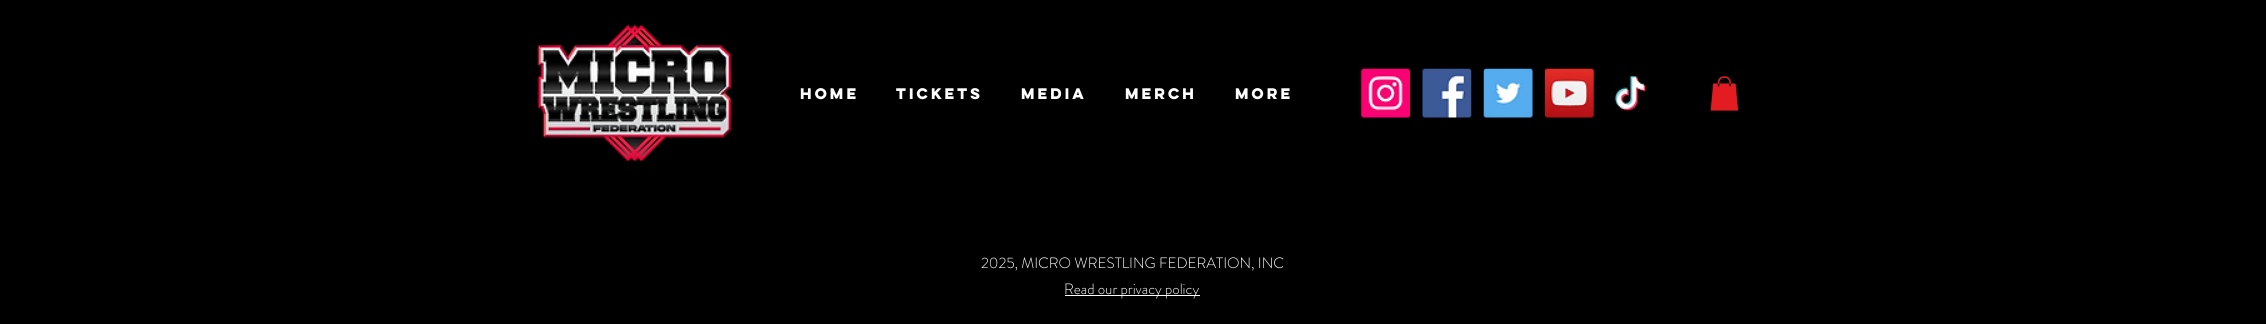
import math
import cairo



def draw_image(context, path, x, y, w, h):
    context.save()
    context.set_source_surface(cairo.ImageSurface.create_from_png(path), x, y)
    context.rectangle(x, y, w, h)
    context.fill()
    context.restore()


def draw(context):
    context.set_source_rgb(0, 0, 0)
    context.paint()
    draw_image(context, "images/1.png", 537, 25, 195, 137)
    draw_image(context, "images/2.png", 1361, 68, 49, 50)
    draw_image(context, "images/3.png", 1422, 68, 50, 50)
    draw_image(context, "images/4.png", 1483, 68, 50, 50)
    draw_image(context, "images/5.png", 1545, 68, 49, 50)
    draw_image(context, "images/6.png", 1614, 76, 33, 36)
    draw_image(context, "images/7.png", 1710, 76, 29, 35)
    context.set_source_rgb(1, 1, 1)
    context.rectangle(1065, 295, 135, 1)
    context.fill()
    context.select_font_face("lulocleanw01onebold", cairo.FontSlant.NORMAL, cairo.FontWeight.BOLD)
    context.set_font_size(13.75)
    context.move_to(800, 99)
    context.show_text("HOME")
    context.move_to(896, 99)
    context.show_text("TICKETS")
    context.move_to(1021, 99)
    context.show_text("MEDIA")
    context.move_to(1125, 99)
    context.show_text("MERCH")
    context.move_to(1235, 99)
    context.show_text("More")
    context.select_font_face("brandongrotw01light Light")
    context.set_font_size(15)
    context.move_to(981, 268)
    context.show_text("2025, MICRO WRESTLING FEDERATION, INC")
    context.move_to(1064, 294)
    context.show_text("Read our privacy policy")


surface = cairo.ImageSurface(cairo.Format.RGB24, 2266, 324)
context = cairo.Context(surface)
options = cairo.FontOptions()
options.set_hint_metrics(cairo.HintMetrics.OFF)
options.set_hint_style(cairo.HintStyle.NONE)
context.set_font_options(options)
context.set_miter_limit(4)
draw(context)
surface.write_to_png("out.png")
